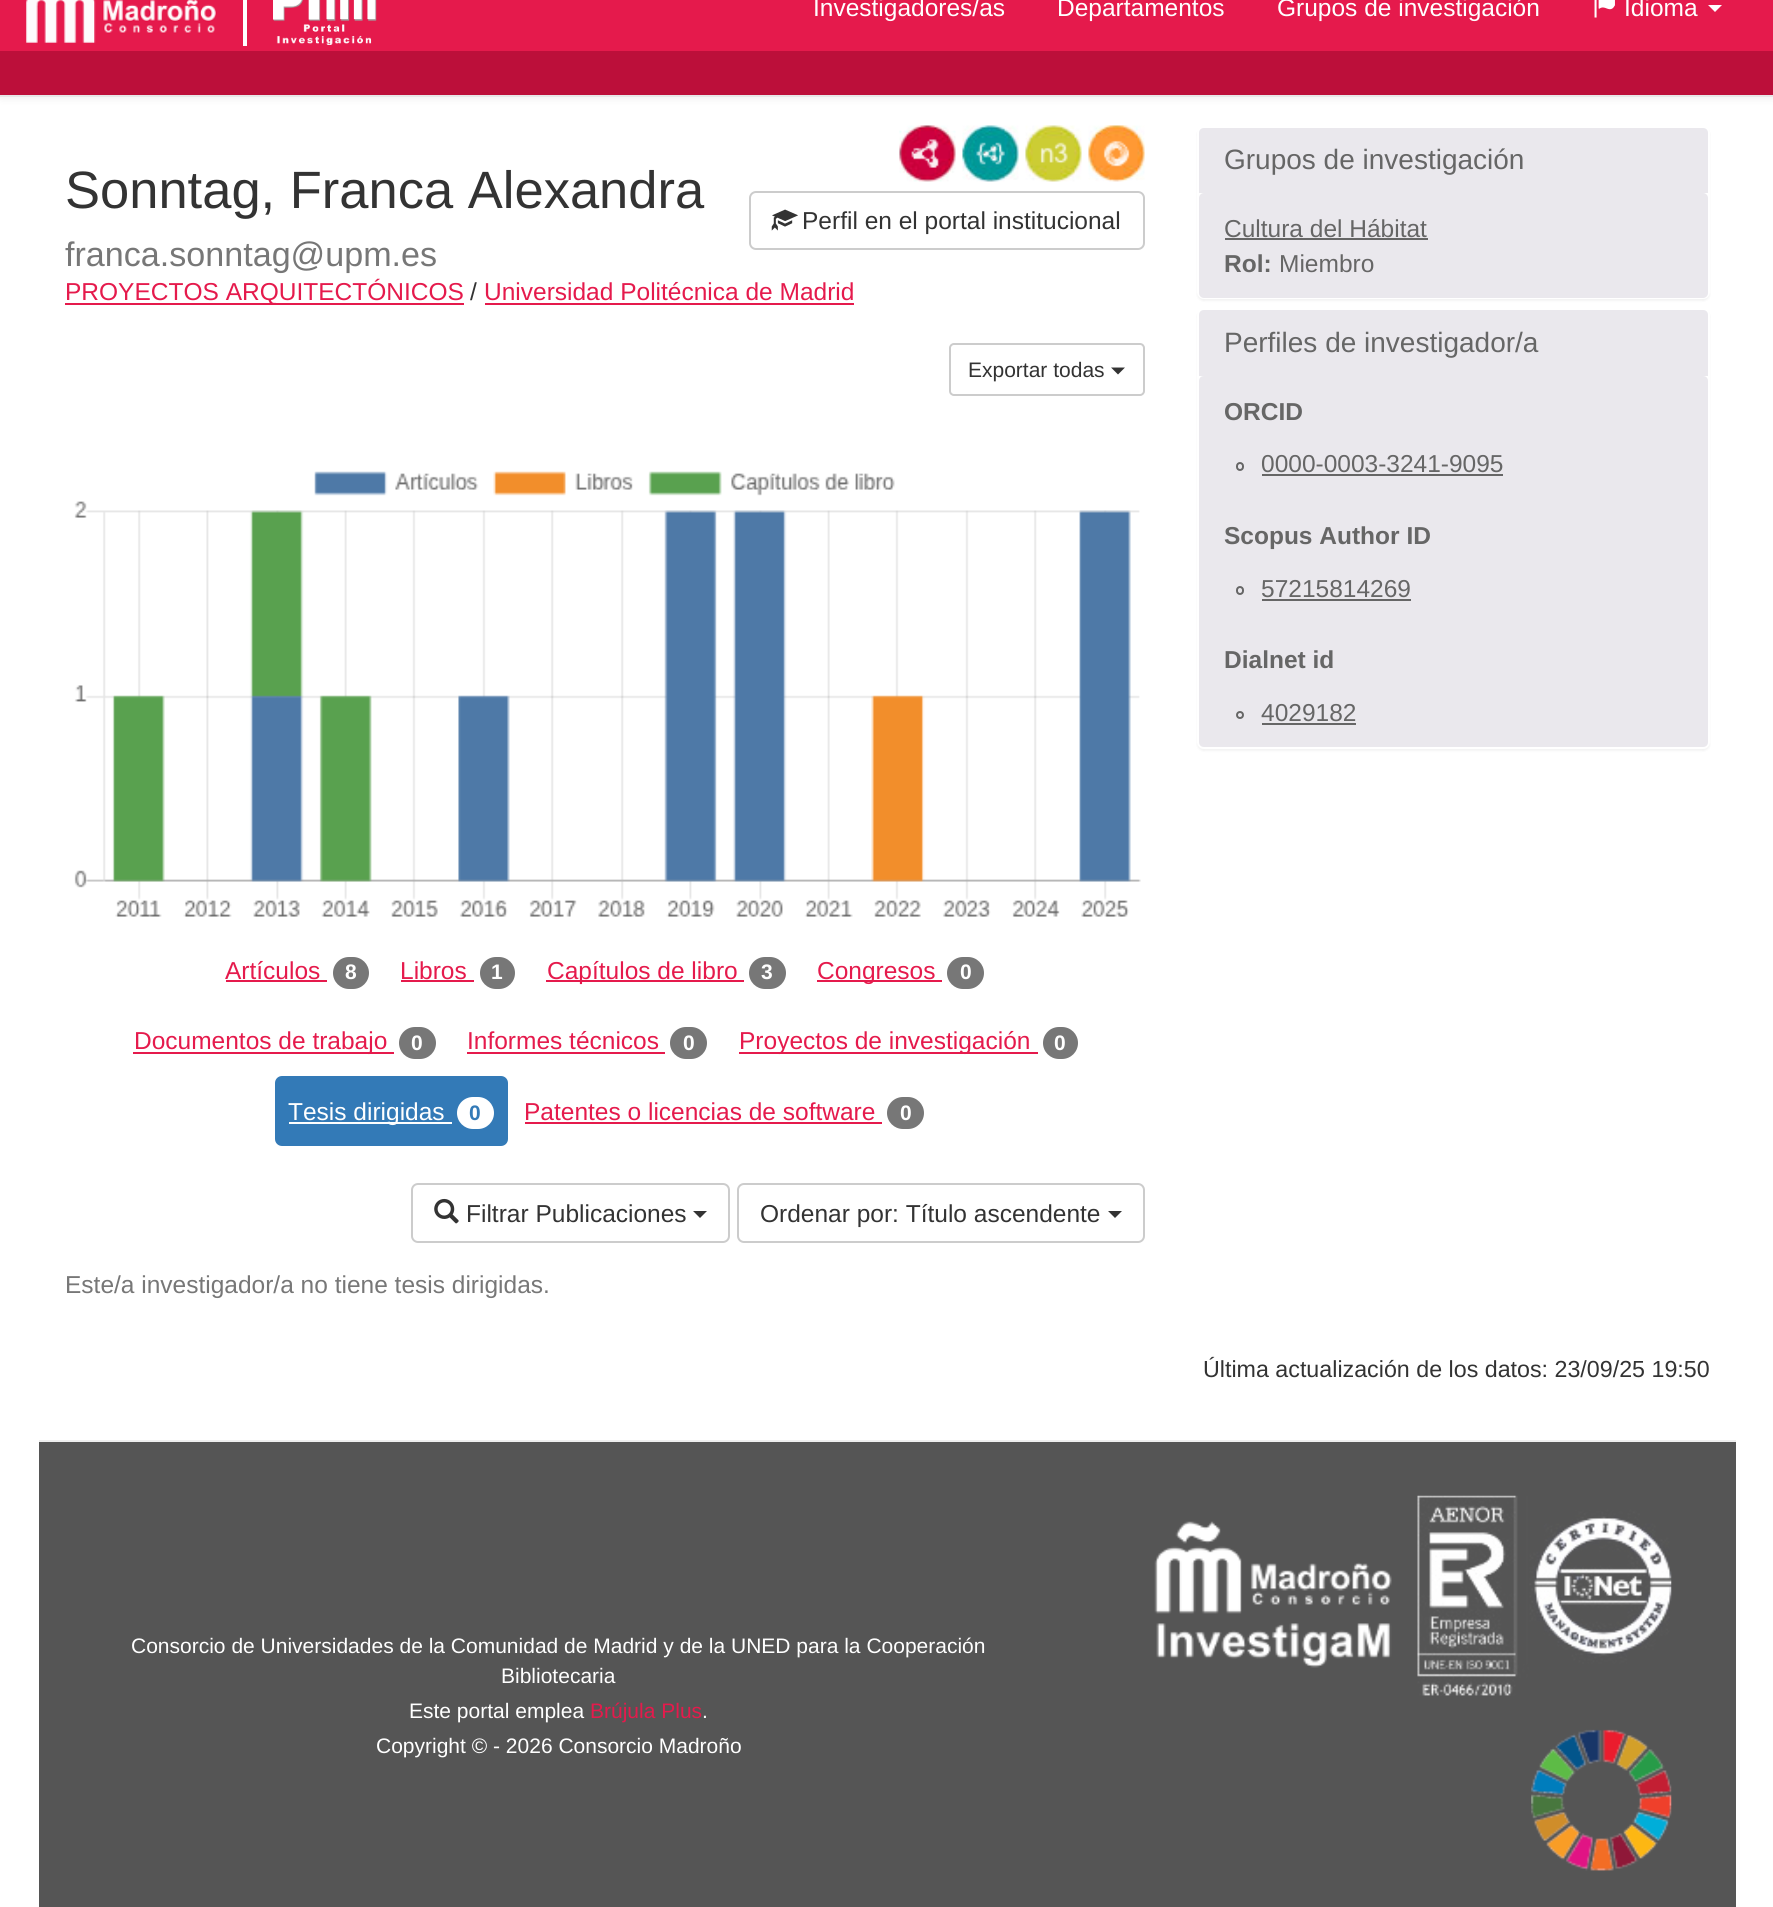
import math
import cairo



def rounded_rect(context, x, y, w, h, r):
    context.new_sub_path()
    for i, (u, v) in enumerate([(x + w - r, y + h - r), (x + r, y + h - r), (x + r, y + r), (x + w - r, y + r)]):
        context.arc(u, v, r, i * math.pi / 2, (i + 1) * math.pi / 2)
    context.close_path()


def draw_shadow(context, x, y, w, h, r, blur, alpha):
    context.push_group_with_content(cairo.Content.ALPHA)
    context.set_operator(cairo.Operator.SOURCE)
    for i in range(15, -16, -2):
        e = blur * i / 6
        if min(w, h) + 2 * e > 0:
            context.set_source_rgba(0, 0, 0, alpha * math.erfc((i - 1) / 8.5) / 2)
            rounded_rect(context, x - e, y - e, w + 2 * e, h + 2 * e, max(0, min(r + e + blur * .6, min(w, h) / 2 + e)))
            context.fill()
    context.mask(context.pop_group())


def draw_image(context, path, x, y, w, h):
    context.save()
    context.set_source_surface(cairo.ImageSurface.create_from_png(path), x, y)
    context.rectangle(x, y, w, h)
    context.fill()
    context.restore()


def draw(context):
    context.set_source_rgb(1, 1, 1)
    context.paint()
    context.set_source_rgb(0, 0, 0)
    draw_shadow(context, 0, -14, 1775, 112, 0, 4.5, 0.07)
    context.set_source_rgb(231 / 255, 231 / 255, 231 / 255)
    context.rectangle(0, 95, 1773, 2)
    context.fill()
    context.set_source_rgb(229 / 255, 26 / 255, 76 / 255)
    context.rectangle(0, 0, 1773, 51)
    context.fill()
    context.set_source_rgb(188 / 255, 15 / 255, 58 / 255)
    context.rectangle(0, 51, 1773, 44)
    context.fill()
    context.set_source_rgb(1, 1, 1)
    context.rectangle(243, 0, 4, 46)
    context.fill()
    draw_image(context, "images/1.png", 26, 0, 191, 43)
    draw_image(context, "images/2.png", 273, 0, 104, 45)
    draw_image(context, "images/3.png", 1594, 0, 21, 18)
    context.new_path()
    context.move_to(1708, 5)
    context.line_to(1722, 5)
    context.line_to(1715, 12)
    context.close_path()
    context.fill()
    draw_image(context, "images/4.png", 899, 125, 57, 57)
    draw_image(context, "images/5.png", 962, 125, 57, 57)
    draw_image(context, "images/6.png", 1025, 125, 57, 57)
    draw_image(context, "images/7.png", 1088, 125, 57, 57)
    rounded_rect(context, 750, 192, 394, 57, 6)
    context.set_source_rgb(204 / 255, 204 / 255, 204 / 255)
    context.stroke()
    draw_image(context, "images/8.png", 771, 209, 27, 22)
    context.set_source_rgb(229 / 255, 26 / 255, 76 / 255)
    context.rectangle(65, 303, 399, 2)
    context.fill()
    context.rectangle(485, 303, 369, 2)
    context.fill()
    rounded_rect(context, 950, 344, 194, 51, 4)
    context.set_source_rgb(204 / 255, 204 / 255, 204 / 255)
    context.stroke()
    context.set_source_rgb(51 / 255, 51 / 255, 51 / 255)
    context.new_path()
    context.move_to(1111, 367.5)
    context.line_to(1125, 367.5)
    context.line_to(1118, 374.5)
    context.close_path()
    context.fill()
    draw_image(context, "images/9.png", 74, 471, 1067, 446)
    context.set_source_rgb(229 / 255, 26 / 255, 76 / 255)
    context.rectangle(226, 980, 101, 2)
    context.fill()
    context.set_source_rgb(119 / 255, 119 / 255, 119 / 255)
    rounded_rect(context, 333, 957, 36, 32, 16)
    context.fill()
    context.set_source_rgb(229 / 255, 26 / 255, 76 / 255)
    context.rectangle(401, 980, 73, 2)
    context.fill()
    context.set_source_rgb(119 / 255, 119 / 255, 119 / 255)
    rounded_rect(context, 480, 957, 35, 32, 16)
    context.fill()
    context.set_source_rgb(229 / 255, 26 / 255, 76 / 255)
    context.rectangle(546, 980, 198, 2)
    context.fill()
    context.set_source_rgb(119 / 255, 119 / 255, 119 / 255)
    rounded_rect(context, 749, 957, 37, 32, 16)
    context.fill()
    context.set_source_rgb(229 / 255, 26 / 255, 76 / 255)
    context.rectangle(817, 980, 125, 2)
    context.fill()
    context.set_source_rgb(119 / 255, 119 / 255, 119 / 255)
    rounded_rect(context, 947, 957, 37, 32, 16)
    context.fill()
    context.set_source_rgb(229 / 255, 26 / 255, 76 / 255)
    context.rectangle(133, 1052, 261, 2)
    context.fill()
    context.set_source_rgb(119 / 255, 119 / 255, 119 / 255)
    rounded_rect(context, 399, 1027, 37, 32, 16)
    context.fill()
    context.set_source_rgb(229 / 255, 26 / 255, 76 / 255)
    context.rectangle(467, 1052, 198, 2)
    context.fill()
    context.set_source_rgb(119 / 255, 119 / 255, 119 / 255)
    rounded_rect(context, 670, 1027, 37, 32, 16)
    context.fill()
    context.set_source_rgb(229 / 255, 26 / 255, 76 / 255)
    context.rectangle(739, 1052, 299, 2)
    context.fill()
    context.set_source_rgb(119 / 255, 119 / 255, 119 / 255)
    rounded_rect(context, 1043, 1027, 35, 32, 16)
    context.fill()
    context.set_source_rgb(51 / 255, 122 / 255, 183 / 255)
    rounded_rect(context, 275, 1076, 233, 70, 7)
    context.fill()
    context.set_source_rgb(1, 1, 1)
    context.rectangle(289, 1122, 163, 2)
    context.fill()
    rounded_rect(context, 457, 1097, 37, 32, 16)
    context.fill()
    context.set_source_rgb(229 / 255, 26 / 255, 76 / 255)
    context.rectangle(525, 1122, 357, 2)
    context.fill()
    context.set_source_rgb(119 / 255, 119 / 255, 119 / 255)
    rounded_rect(context, 887, 1097, 37, 32, 16)
    context.fill()
    rounded_rect(context, 412, 1184, 317, 58, 6)
    context.set_source_rgb(204 / 255, 204 / 255, 204 / 255)
    context.stroke()
    draw_image(context, "images/10.png", 434, 1198, 25, 26)
    context.set_source_rgb(51 / 255, 51 / 255, 51 / 255)
    context.new_path()
    context.move_to(693, 1211)
    context.line_to(707, 1211)
    context.line_to(700, 1218)
    context.close_path()
    context.fill()
    rounded_rect(context, 738, 1184, 406, 58, 6)
    context.set_source_rgb(204 / 255, 204 / 255, 204 / 255)
    context.stroke()
    context.set_source_rgb(51 / 255, 51 / 255, 51 / 255)
    context.new_path()
    context.move_to(1108, 1211)
    context.line_to(1122, 1211)
    context.line_to(1115, 1218)
    context.close_path()
    context.fill()
    context.set_source_rgb(0, 0, 0)
    draw_shadow(context, 1197, 128, 513, 173, 7, 1, 0.05)
    context.set_source_rgb(1, 1, 1)
    rounded_rect(context, 1197, 126, 513, 173, 7)
    context.fill()
    context.set_source_rgb(234 / 255, 232 / 255, 237 / 255)
    context.new_path()
    context.move_to(1204, 128)
    context.line_to(1703, 128)
    context.curve_to(1706, 128, 1708, 130, 1708, 133)
    context.line_to(1708, 193)
    context.line_to(1199, 193)
    context.line_to(1199, 133)
    context.curve_to(1199, 130, 1201, 128, 1204, 128)
    context.close_path()
    context.fill()
    rounded_rect(context, 1199, 193, 509, 105, 5)
    context.fill()
    context.set_source_rgb(102 / 255, 102 / 255, 102 / 255)
    context.rectangle(1225, 238, 203, 2)
    context.fill()
    context.set_source_rgb(0, 0, 0)
    draw_shadow(context, 1197, 310, 513, 441, 7, 1, 0.05)
    context.set_source_rgb(1, 1, 1)
    rounded_rect(context, 1197, 308, 513, 441, 7)
    context.fill()
    context.set_source_rgb(234 / 255, 232 / 255, 237 / 255)
    context.new_path()
    context.move_to(1204, 310)
    context.line_to(1703, 310)
    context.curve_to(1706, 310, 1708, 312, 1708, 315)
    context.line_to(1708, 376)
    context.line_to(1199, 376)
    context.line_to(1199, 315)
    context.curve_to(1199, 312, 1201, 310, 1204, 310)
    context.close_path()
    context.fill()
    context.new_path()
    context.move_to(1204, 376)
    context.line_to(1703, 376)
    context.curve_to(1706, 376, 1708, 378, 1708, 381)
    context.line_to(1708, 501)
    context.line_to(1199, 501)
    context.line_to(1199, 381)
    context.curve_to(1199, 378, 1201, 376, 1204, 376)
    context.close_path()
    context.fill()
    rounded_rect(context, 1237, 463, 6, 7, 3)
    context.set_source_rgb(102 / 255, 102 / 255, 102 / 255)
    context.stroke()
    context.rectangle(1262, 474, 241, 2)
    context.fill()
    context.set_source_rgb(234 / 255, 232 / 255, 237 / 255)
    context.rectangle(1199, 501, 509, 122)
    context.fill()
    rounded_rect(context, 1237, 587, 6, 7, 3)
    context.set_source_rgb(102 / 255, 102 / 255, 102 / 255)
    context.stroke()
    context.rectangle(1262, 599, 149, 2)
    context.fill()
    context.set_source_rgb(234 / 255, 232 / 255, 237 / 255)
    context.new_path()
    context.move_to(1199, 623)
    context.line_to(1708, 623)
    context.line_to(1708, 742)
    context.curve_to(1708, 745, 1706, 747, 1703, 747)
    context.line_to(1204, 747)
    context.curve_to(1201, 747, 1199, 745, 1199, 742)
    context.close_path()
    context.fill()
    context.arc(1240, 715, 3, 0, 2 * math.pi)
    context.set_source_rgb(102 / 255, 102 / 255, 102 / 255)
    context.stroke()
    context.rectangle(1262, 723, 94, 2)
    context.fill()
    context.set_source_rgb(85 / 255, 85 / 255, 85 / 255)
    context.rectangle(39, 1442, 1697, 465)
    context.fill()
    context.set_source_rgb(238 / 255, 238 / 255, 238 / 255)
    context.rectangle(39, 1440, 1697, 2)
    context.fill()
    draw_image(context, "images/11.png", 1154, 1521, 238, 147)
    draw_image(context, "images/12.png", 1417, 1495, 255, 201)
    draw_image(context, "images/13.png", 1531, 1729, 141, 142)
    context.select_font_face("Liberation Sans")
    context.set_font_size(24.5)
    context.set_source_rgb(1, 1, 1)
    context.move_to(813, 16)
    context.show_text("Investigadores/as")
    context.move_to(1057, 16)
    context.show_text("Departamentos")
    context.move_to(1277, 16)
    context.show_text("Grupos de investigación")
    context.move_to(1624, 16)
    context.show_text("Idioma")
    context.set_font_size(52.5)
    context.set_source_rgb(51 / 255, 51 / 255, 51 / 255)
    context.move_to(65, 208)
    context.show_text("Sonntag, Franca Alexandra")
    context.set_font_size(34.1)
    context.set_source_rgb(119 / 255, 119 / 255, 119 / 255)
    context.move_to(65, 266)
    context.show_text("franca.sonntag@upm.es")
    context.set_font_size(24.5)
    context.set_source_rgb(51 / 255, 51 / 255, 51 / 255)
    context.move_to(802, 229)
    context.show_text("Perfil en el portal institucional")
    context.set_source_rgb(229 / 255, 26 / 255, 76 / 255)
    context.move_to(65, 300)
    context.show_text("PROYECTOS ARQUITECTÓNICOS")
    context.set_source_rgb(51 / 255, 51 / 255, 51 / 255)
    context.move_to(470, 300)
    context.show_text("/")
    context.set_source_rgb(229 / 255, 26 / 255, 76 / 255)
    context.move_to(484, 300)
    context.show_text("Universidad Politécnica de Madrid")
    context.set_font_size(21)
    context.set_source_rgb(51 / 255, 51 / 255, 51 / 255)
    context.move_to(968, 377)
    context.show_text("Exportar todas")
    context.set_font_size(24.5)
    context.set_source_rgb(229 / 255, 26 / 255, 76 / 255)
    context.move_to(225, 979)
    context.show_text("Artículos")
    context.select_font_face("Liberation Sans", cairo.FontSlant.NORMAL, cairo.FontWeight.BOLD)
    context.set_font_size(21)
    context.set_source_rgb(1, 1, 1)
    context.move_to(345, 979)
    context.show_text("8")
    context.select_font_face("Liberation Sans")
    context.set_font_size(24.5)
    context.set_source_rgb(229 / 255, 26 / 255, 76 / 255)
    context.move_to(400, 979)
    context.show_text("Libros")
    context.select_font_face("Liberation Sans", cairo.FontSlant.NORMAL, cairo.FontWeight.BOLD)
    context.set_font_size(21)
    context.set_source_rgb(1, 1, 1)
    context.move_to(491, 979)
    context.show_text("1")
    context.select_font_face("Liberation Sans")
    context.set_font_size(24.5)
    context.set_source_rgb(229 / 255, 26 / 255, 76 / 255)
    context.move_to(547, 979)
    context.show_text("Capítulos de libro")
    context.select_font_face("Liberation Sans", cairo.FontSlant.NORMAL, cairo.FontWeight.BOLD)
    context.set_font_size(21)
    context.set_source_rgb(1, 1, 1)
    context.move_to(761, 979)
    context.show_text("3")
    context.select_font_face("Liberation Sans")
    context.set_font_size(24.5)
    context.set_source_rgb(229 / 255, 26 / 255, 76 / 255)
    context.move_to(817, 979)
    context.show_text("Congresos")
    context.select_font_face("Liberation Sans", cairo.FontSlant.NORMAL, cairo.FontWeight.BOLD)
    context.set_font_size(21)
    context.set_source_rgb(1, 1, 1)
    context.move_to(960, 979)
    context.show_text("0")
    context.select_font_face("Liberation Sans")
    context.set_font_size(24.5)
    context.set_source_rgb(229 / 255, 26 / 255, 76 / 255)
    context.move_to(134, 1049)
    context.show_text("Documentos de trabajo")
    context.select_font_face("Liberation Sans", cairo.FontSlant.NORMAL, cairo.FontWeight.BOLD)
    context.set_font_size(21)
    context.set_source_rgb(1, 1, 1)
    context.move_to(411, 1050)
    context.show_text("0")
    context.select_font_face("Liberation Sans")
    context.set_font_size(24.5)
    context.set_source_rgb(229 / 255, 26 / 255, 76 / 255)
    context.move_to(467, 1049)
    context.show_text("Informes técnicos")
    context.select_font_face("Liberation Sans", cairo.FontSlant.NORMAL, cairo.FontWeight.BOLD)
    context.set_font_size(21)
    context.set_source_rgb(1, 1, 1)
    context.move_to(683, 1050)
    context.show_text("0")
    context.select_font_face("Liberation Sans")
    context.set_font_size(24.5)
    context.set_source_rgb(229 / 255, 26 / 255, 76 / 255)
    context.move_to(739, 1049)
    context.show_text("Proyectos de investigación")
    context.select_font_face("Liberation Sans", cairo.FontSlant.NORMAL, cairo.FontWeight.BOLD)
    context.set_font_size(21)
    context.set_source_rgb(1, 1, 1)
    context.move_to(1054, 1050)
    context.show_text("0")
    context.select_font_face("Liberation Sans")
    context.set_font_size(24.5)
    context.move_to(288, 1120)
    context.show_text("Tesis dirigidas")
    context.select_font_face("Liberation Sans", cairo.FontSlant.NORMAL, cairo.FontWeight.BOLD)
    context.set_font_size(21)
    context.set_source_rgb(51 / 255, 122 / 255, 183 / 255)
    context.move_to(469, 1120)
    context.show_text("0")
    context.select_font_face("Liberation Sans")
    context.set_font_size(24.5)
    context.set_source_rgb(229 / 255, 26 / 255, 76 / 255)
    context.move_to(524, 1120)
    context.show_text("Patentes o licencias de software")
    context.select_font_face("Liberation Sans", cairo.FontSlant.NORMAL, cairo.FontWeight.BOLD)
    context.set_font_size(21)
    context.set_source_rgb(1, 1, 1)
    context.move_to(900, 1120)
    context.show_text("0")
    context.select_font_face("Liberation Sans")
    context.set_font_size(24.5)
    context.set_source_rgb(51 / 255, 51 / 255, 51 / 255)
    context.move_to(466, 1222)
    context.show_text("Filtrar Publicaciones")
    context.move_to(760, 1222)
    context.show_text("Ordenar por: Título ascendente")
    context.set_source_rgb(119 / 255, 119 / 255, 119 / 255)
    context.move_to(65, 1293)
    context.show_text("Este/a investigador/a no tiene tesis dirigidas.")
    context.set_font_size(28)
    context.set_source_rgb(102 / 255, 102 / 255, 102 / 255)
    context.move_to(1224, 169)
    context.show_text("Grupos de investigación")
    context.set_font_size(24.5)
    context.move_to(1224, 237)
    context.show_text("Cultura del Hábitat")
    context.select_font_face("Liberation Sans", cairo.FontSlant.NORMAL, cairo.FontWeight.BOLD)
    context.move_to(1224, 272)
    context.show_text("Rol:")
    context.select_font_face("Liberation Sans")
    context.move_to(1279, 272)
    context.show_text("Miembro")
    context.set_font_size(28)
    context.move_to(1224, 352)
    context.show_text("Perfiles de investigador/a")
    context.select_font_face("Liberation Sans", cairo.FontSlant.NORMAL, cairo.FontWeight.BOLD)
    context.set_font_size(24.5)
    context.move_to(1224, 420)
    context.show_text("ORCID")
    context.select_font_face("Liberation Sans")
    context.move_to(1261, 472)
    context.show_text("0000-0003-3241-9095")
    context.select_font_face("Liberation Sans", cairo.FontSlant.NORMAL, cairo.FontWeight.BOLD)
    context.move_to(1224, 544)
    context.show_text("Scopus Author ID")
    context.select_font_face("Liberation Sans")
    context.move_to(1261, 597)
    context.show_text("57215814269")
    context.select_font_face("Liberation Sans", cairo.FontSlant.NORMAL, cairo.FontWeight.BOLD)
    context.move_to(1224, 668)
    context.show_text("Dialnet id")
    context.select_font_face("Liberation Sans")
    context.move_to(1261, 721)
    context.show_text("4029182")
    context.set_font_size(23.25)
    context.set_source_rgb(51 / 255, 51 / 255, 51 / 255)
    context.move_to(1203, 1377)
    context.show_text("Última actualización de los datos: 23/09/25 19:50")
    context.set_font_size(21)
    context.set_source_rgb(1, 1, 1)
    context.move_to(131, 1653)
    context.show_text("Consorcio de Universidades de la Comunidad de Madrid y de la UNED para la Cooperación")
    context.move_to(501, 1683)
    context.show_text("Bibliotecaria")
    context.move_to(409, 1718)
    context.show_text("Este portal emplea")
    context.set_source_rgb(229 / 255, 26 / 255, 76 / 255)
    context.move_to(590, 1718)
    context.show_text("Brújula Plus")
    context.set_source_rgb(1, 1, 1)
    context.move_to(702, 1718)
    context.show_text(".")
    context.move_to(376, 1753)
    context.show_text("Copyright © - 2026 Consorcio Madroño")


surface = cairo.ImageSurface(cairo.Format.RGB24, 1773, 1907)
context = cairo.Context(surface)
options = cairo.FontOptions()
options.set_hint_metrics(cairo.HintMetrics.OFF)
options.set_hint_style(cairo.HintStyle.NONE)
context.set_font_options(options)
context.set_miter_limit(4)
draw(context)
surface.write_to_png("out.png")
